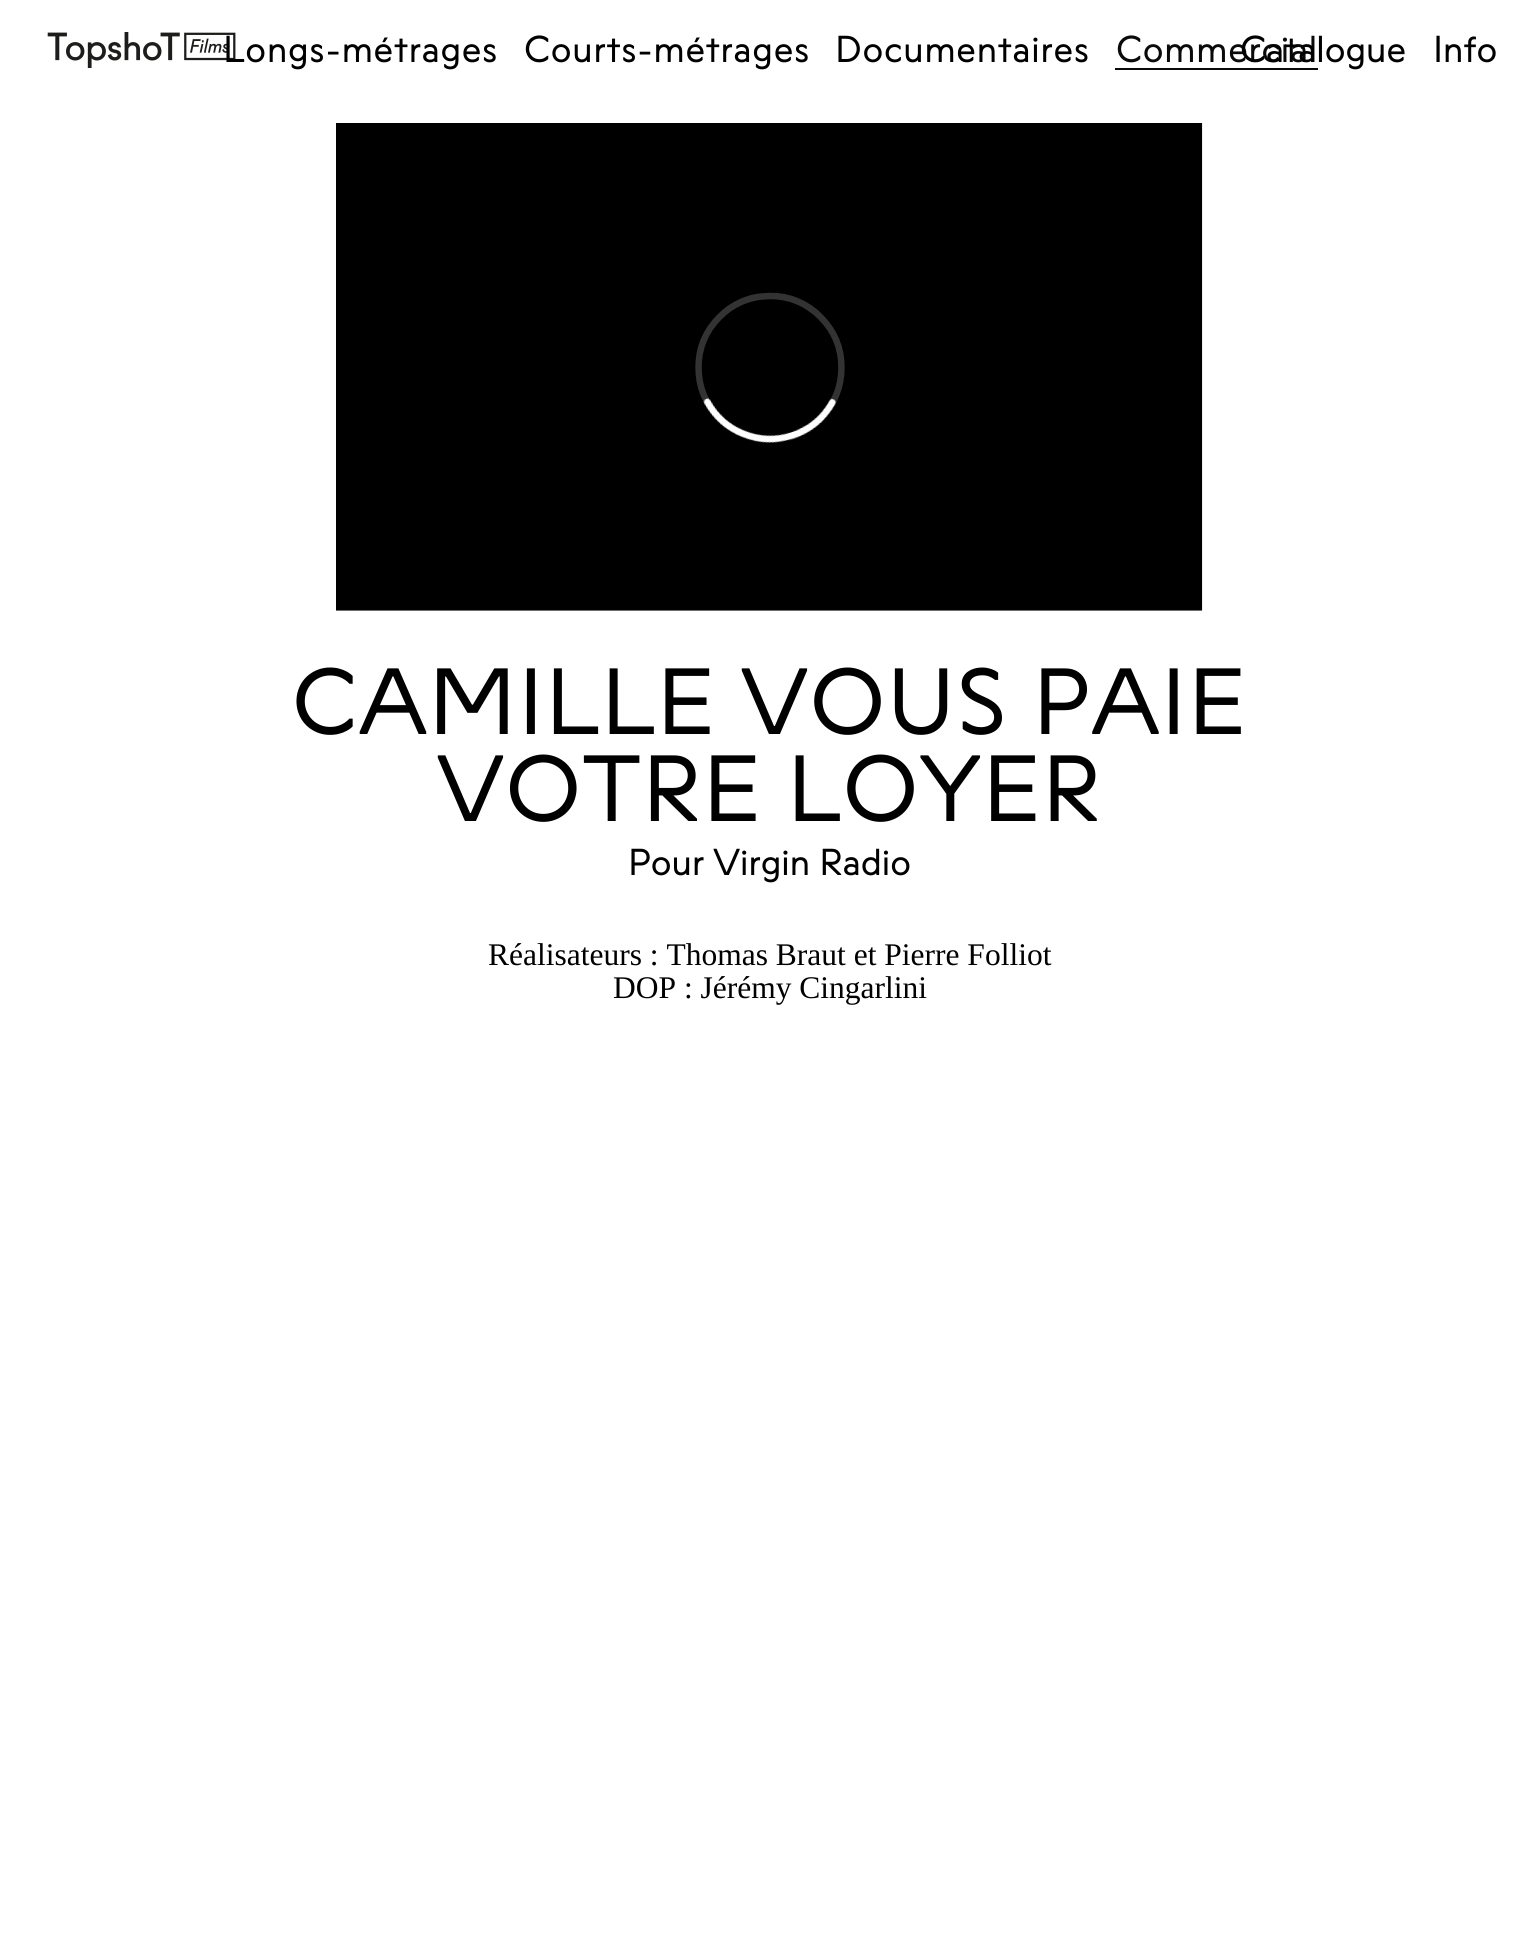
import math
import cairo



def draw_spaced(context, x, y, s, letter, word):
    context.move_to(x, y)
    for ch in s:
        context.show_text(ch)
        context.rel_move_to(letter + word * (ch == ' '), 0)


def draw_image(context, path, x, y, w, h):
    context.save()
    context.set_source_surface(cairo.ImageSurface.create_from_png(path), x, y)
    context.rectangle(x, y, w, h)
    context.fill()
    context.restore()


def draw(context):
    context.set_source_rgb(1, 1, 1)
    context.paint()
    draw_image(context, "images/1.png", 47, 32, 189, 36)
    context.set_source_rgb(10 / 255, 10 / 255, 10 / 255)
    context.rectangle(1115, 68, 203, 2)
    context.fill()
    draw_image(context, "images/2.png", 336, 123, 867, 488)
    context.select_font_face("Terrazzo")
    context.set_font_size(35)
    context.set_source_rgb(0, 0, 0)
    draw_spaced(context, 223, 62, "Longs-métrages", 0.75, 0)
    draw_spaced(context, 524, 62, "Courts-métrages", 0.75, 0)
    draw_spaced(context, 835, 62, "Documentaires", 0.75, 0)
    context.set_source_rgb(10 / 255, 10 / 255, 10 / 255)
    draw_spaced(context, 1116, 62, "Commercial", 0.75, 0)
    context.set_source_rgb(0, 0, 0)
    context.move_to(1240, 62)
    context.show_text("Catalogue")
    context.move_to(1433, 62)
    context.show_text("Info")
    context.set_font_size(87.5)
    draw_spaced(context, 292, 734, "CAMILLE VOUS PAIE", 1.75, 0)
    draw_spaced(context, 437, 821, "VOTRE LOYER", 1.75, 0)
    context.set_font_size(35)
    context.move_to(628, 875)
    context.show_text("Pour Virgin Radio")
    context.select_font_face("Liberation Serif")
    context.set_font_size(31.5)
    context.move_to(488, 965)
    context.show_text("Réalisateurs : Thomas Braut et Pierre Folliot")
    context.move_to(613, 998)
    context.show_text("DOP : Jérémy Cingarlini")


surface = cairo.ImageSurface(cairo.Format.RGB24, 1539, 1946)
context = cairo.Context(surface)
options = cairo.FontOptions()
options.set_hint_metrics(cairo.HintMetrics.OFF)
options.set_hint_style(cairo.HintStyle.NONE)
context.set_font_options(options)
context.set_miter_limit(4)
draw(context)
surface.write_to_png("out.png")
